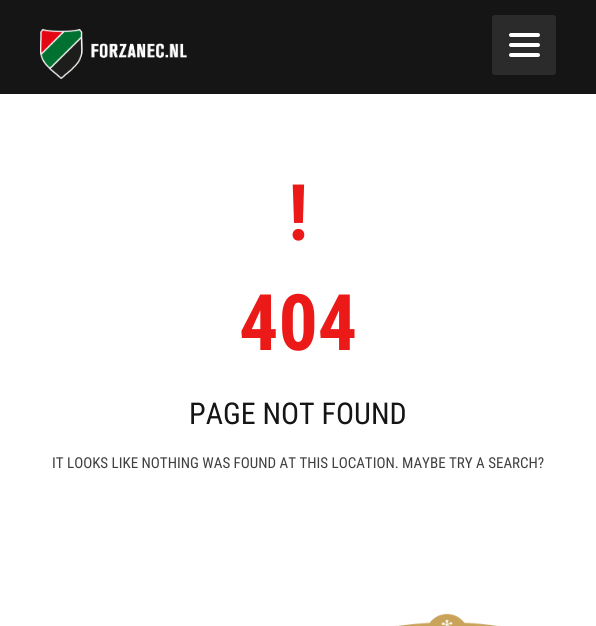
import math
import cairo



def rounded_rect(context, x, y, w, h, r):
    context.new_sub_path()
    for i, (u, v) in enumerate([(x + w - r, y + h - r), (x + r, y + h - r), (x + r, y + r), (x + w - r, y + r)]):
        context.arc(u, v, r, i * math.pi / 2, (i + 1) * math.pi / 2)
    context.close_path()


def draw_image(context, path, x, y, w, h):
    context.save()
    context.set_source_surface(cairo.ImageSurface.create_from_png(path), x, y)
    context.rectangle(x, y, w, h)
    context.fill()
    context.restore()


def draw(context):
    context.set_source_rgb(1, 1, 1)
    context.paint()
    context.set_source_rgb(21 / 255, 21 / 255, 21 / 255)
    context.rectangle(0, 0, 596, 94)
    context.fill()
    draw_image(context, "images/1.png", 40, 29, 147, 50)
    context.set_source_rgb(43 / 255, 43 / 255, 44 / 255)
    rounded_rect(context, 492, 15, 64, 60, 3)
    context.fill()
    context.set_source_rgb(1, 1, 1)
    rounded_rect(context, 509, 33, 31, 4, 2)
    context.fill()
    rounded_rect(context, 509, 43, 31, 4, 2)
    context.fill()
    rounded_rect(context, 509, 53, 31, 4, 2)
    context.fill()
    draw_image(context, "images/2.png", 394, 613, 107, 13)
    context.select_font_face("Roboto Condensed", cairo.FontSlant.NORMAL, cairo.FontWeight.BOLD)
    context.set_font_size(78)
    context.set_source_rgb(236 / 255, 25 / 255, 25 / 255)
    context.move_to(288, 240)
    context.show_text("!")
    context.move_to(239, 350)
    context.show_text("404")
    context.select_font_face("Roboto Condensed")
    context.set_font_size(30)
    context.set_source_rgb(21 / 255, 21 / 255, 21 / 255)
    context.move_to(189, 424)
    context.show_text("PAGE NOT FOUND")
    context.set_font_size(15)
    context.set_source_rgb(64 / 255, 64 / 255, 64 / 255)
    context.move_to(52, 468)
    context.show_text("IT LOOKS LIKE NOTHING WAS FOUND AT THIS LOCATION. MAYBE TRY A SEARCH?")


surface = cairo.ImageSurface(cairo.Format.RGB24, 596, 626)
context = cairo.Context(surface)
options = cairo.FontOptions()
options.set_hint_metrics(cairo.HintMetrics.OFF)
options.set_hint_style(cairo.HintStyle.NONE)
context.set_font_options(options)
context.set_miter_limit(4)
draw(context)
surface.write_to_png("out.png")
